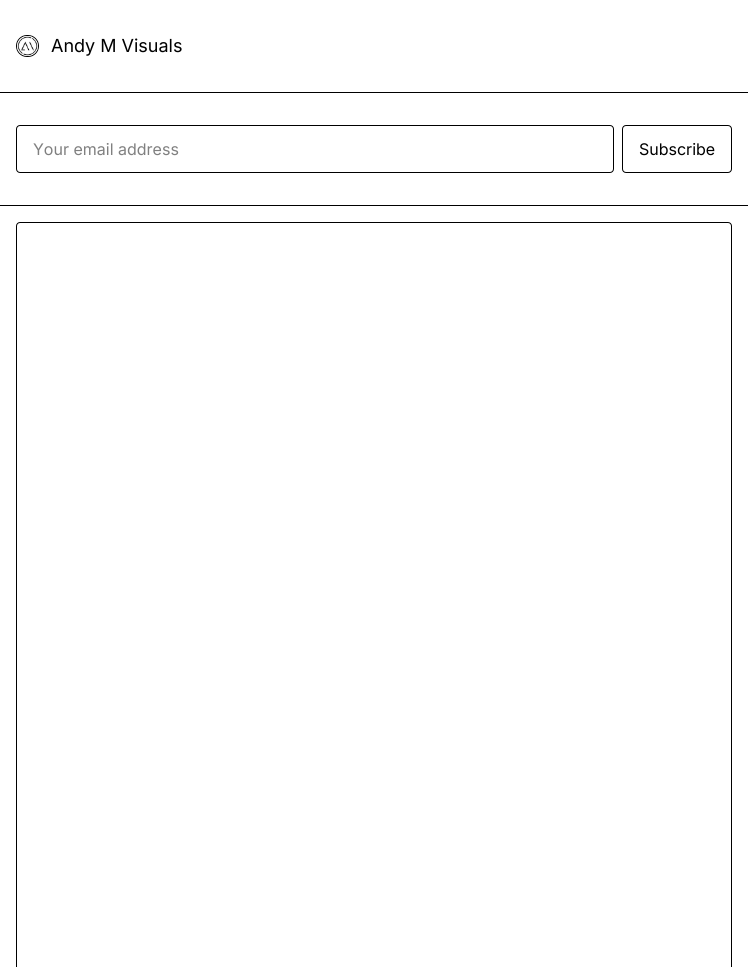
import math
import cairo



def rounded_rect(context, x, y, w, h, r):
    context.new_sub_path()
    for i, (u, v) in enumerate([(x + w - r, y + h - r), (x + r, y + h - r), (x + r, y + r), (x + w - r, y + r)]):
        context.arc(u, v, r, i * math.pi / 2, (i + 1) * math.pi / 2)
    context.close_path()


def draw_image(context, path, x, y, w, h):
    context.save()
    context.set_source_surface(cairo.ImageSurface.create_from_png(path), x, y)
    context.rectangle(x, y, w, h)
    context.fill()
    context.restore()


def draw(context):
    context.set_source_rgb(1, 1, 1)
    context.paint()
    context.set_source_rgb(0, 0, 0)
    context.rectangle(0, 92, 748, 1)
    context.fill()
    rounded_rect(context, 16.5, 35.5, 22, 21, 10.5)
    context.set_line_width(1)
    context.stroke()
    draw_image(context, "images/1.png", 17, 36, 21, 20)
    context.rectangle(0, 205, 748, 1)
    context.fill()
    rounded_rect(context, 16.5, 125.5, 597, 47, 3.5)
    context.stroke()
    rounded_rect(context, 622.5, 125.5, 109, 47, 3.5)
    context.stroke()
    rounded_rect(context, 16.5, 222.5, 715, 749, 3.5)
    context.stroke()
    context.select_font_face("Inter")
    context.set_font_size(18)
    context.move_to(51, 52)
    context.show_text("Andy M Visuals")
    context.set_font_size(16)
    context.set_source_rgb(128 / 255, 128 / 255, 128 / 255)
    context.move_to(33, 155)
    context.show_text("Your email address")
    context.set_source_rgb(0, 0, 0)
    context.move_to(639, 155)
    context.show_text("Subscribe")


surface = cairo.ImageSurface(cairo.Format.RGB24, 748, 967)
context = cairo.Context(surface)
options = cairo.FontOptions()
options.set_hint_metrics(cairo.HintMetrics.OFF)
options.set_hint_style(cairo.HintStyle.NONE)
context.set_font_options(options)
context.set_miter_limit(4)
draw(context)
surface.write_to_png("out.png")
